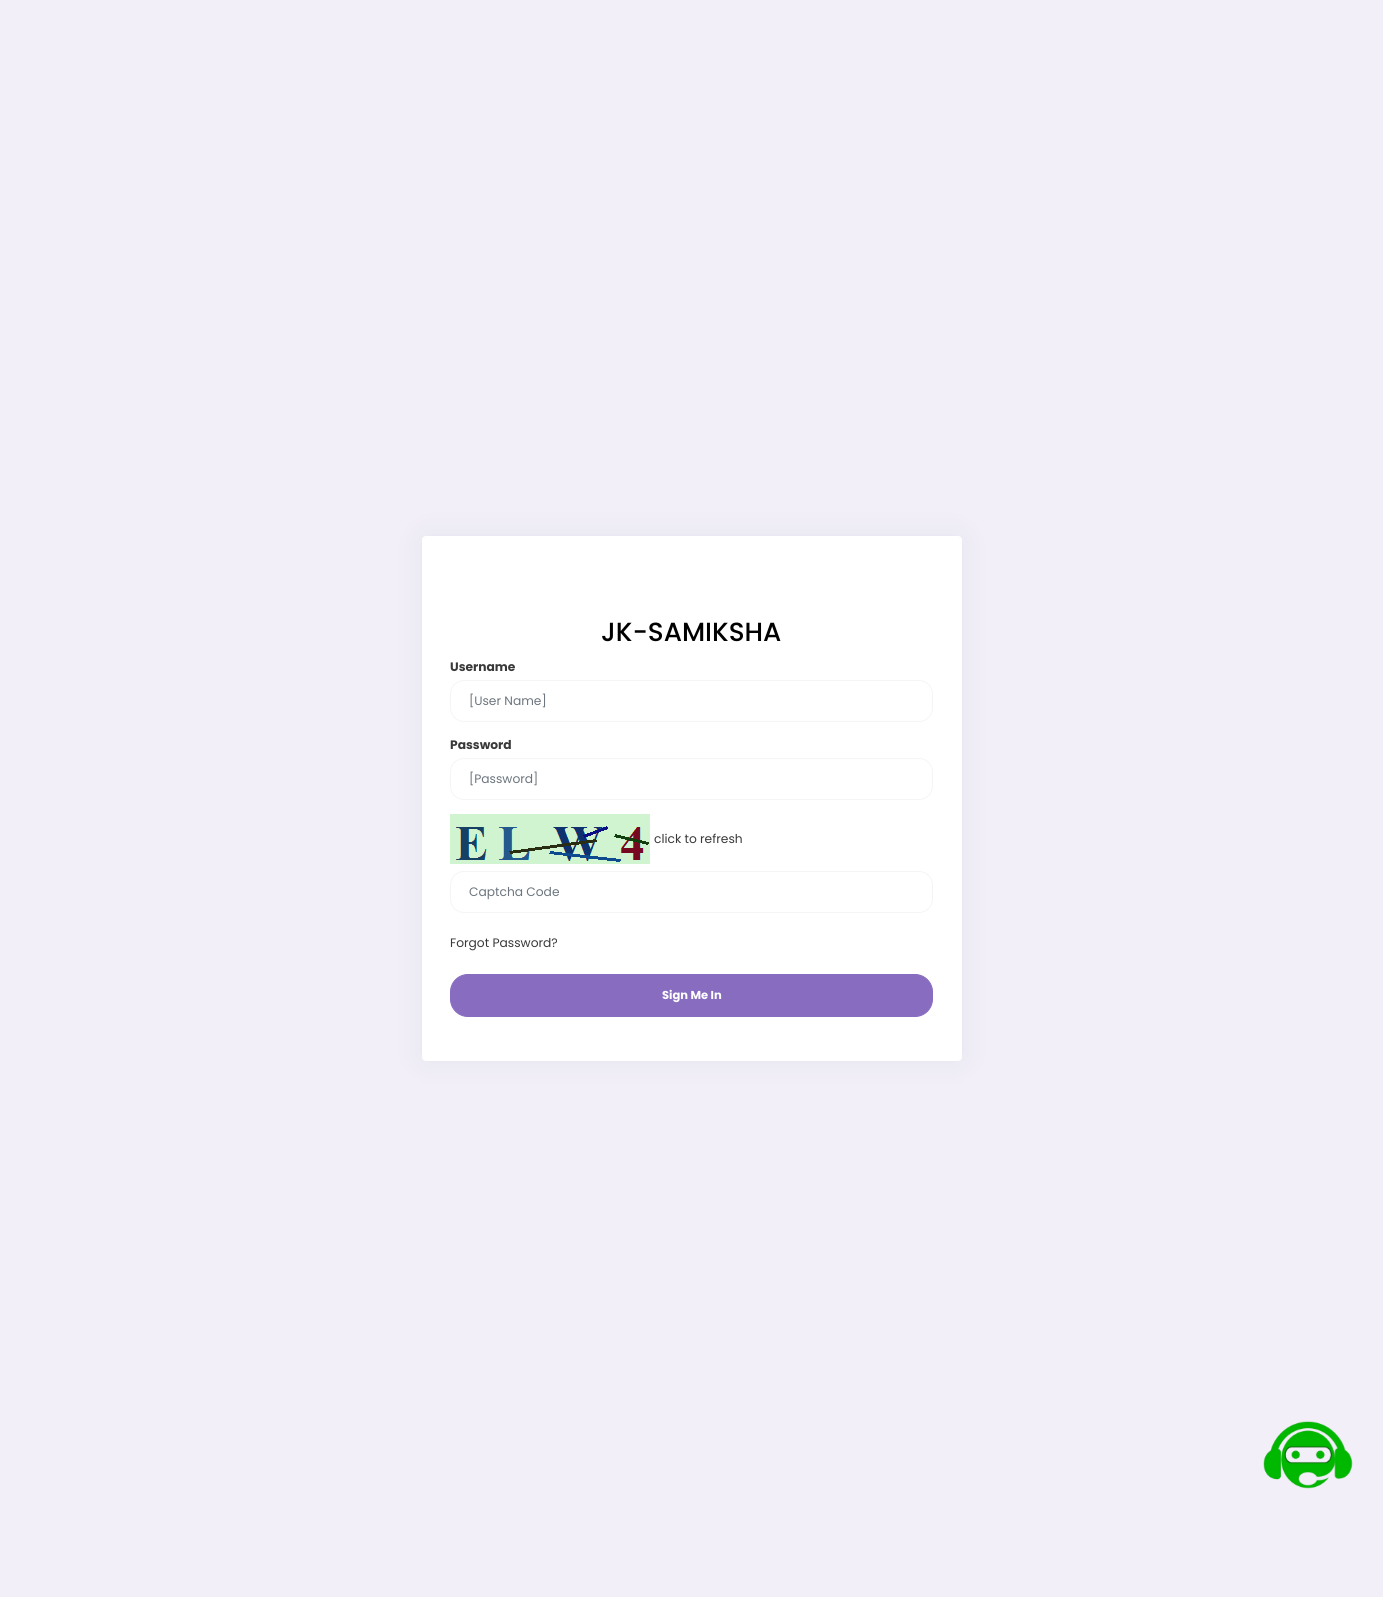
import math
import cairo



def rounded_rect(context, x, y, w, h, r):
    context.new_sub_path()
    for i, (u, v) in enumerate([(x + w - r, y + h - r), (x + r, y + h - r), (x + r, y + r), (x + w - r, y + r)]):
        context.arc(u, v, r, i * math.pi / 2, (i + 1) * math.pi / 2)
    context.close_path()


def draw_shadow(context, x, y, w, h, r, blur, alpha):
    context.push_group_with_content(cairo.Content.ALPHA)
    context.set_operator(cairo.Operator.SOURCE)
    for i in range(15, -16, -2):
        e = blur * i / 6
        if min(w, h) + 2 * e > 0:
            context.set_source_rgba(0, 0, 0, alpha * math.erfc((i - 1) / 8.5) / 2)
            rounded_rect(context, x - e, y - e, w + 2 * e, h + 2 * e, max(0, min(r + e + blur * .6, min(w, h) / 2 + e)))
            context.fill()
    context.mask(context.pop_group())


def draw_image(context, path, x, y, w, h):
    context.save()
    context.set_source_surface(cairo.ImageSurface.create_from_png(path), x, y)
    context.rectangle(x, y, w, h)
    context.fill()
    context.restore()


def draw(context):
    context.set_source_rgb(242 / 255, 239 / 255, 248 / 255)
    context.paint()
    context.set_source_rgb(154 / 255, 161 / 255, 171 / 255)
    draw_shadow(context, 422, 536, 540, 525, 4, 15.5, 0.15)
    context.set_source_rgb(1, 1, 1)
    rounded_rect(context, 422, 536, 540, 525, 4)
    context.fill()
    rounded_rect(context, 450.5, 680.5, 482, 41, 13.5)
    context.set_source_rgb(245 / 255, 245 / 255, 245 / 255)
    context.set_line_width(1)
    context.stroke()
    rounded_rect(context, 450.5, 758.5, 482, 41, 13.5)
    context.stroke()
    draw_image(context, "images/1.png", 450, 814, 200, 50)
    rounded_rect(context, 450.5, 871.5, 482, 41, 13.5)
    context.stroke()
    context.set_source_rgb(136 / 255, 108 / 255, 192 / 255)
    rounded_rect(context, 450.5, 974.5, 482, 42, 17.5)
    context.fill_preserve()
    context.stroke()
    draw_image(context, "images/2.png", 1263, 1421, 90, 68)
    context.select_font_face("Poppins Medium")
    context.set_font_size(26.25)
    context.set_source_rgb(0, 0, 0)
    context.move_to(601, 641)
    context.show_text("JK-SAMIKSHA")
    context.select_font_face("Poppins", cairo.FontSlant.NORMAL, cairo.FontWeight.BOLD)
    context.set_font_size(12.25)
    context.set_source_rgb(57 / 255, 57 / 255, 57 / 255)
    context.move_to(450, 671)
    context.show_text("Username")
    context.select_font_face("Poppins")
    context.set_source_rgb(108 / 255, 117 / 255, 125 / 255)
    context.move_to(469, 705)
    context.show_text("[User Name]")
    context.select_font_face("Poppins", cairo.FontSlant.NORMAL, cairo.FontWeight.BOLD)
    context.set_source_rgb(57 / 255, 57 / 255, 57 / 255)
    context.move_to(450, 749)
    context.show_text("Password")
    context.select_font_face("Poppins")
    context.set_source_rgb(108 / 255, 117 / 255, 125 / 255)
    context.move_to(469, 783)
    context.show_text("[Password]")
    context.set_source_rgb(57 / 255, 57 / 255, 57 / 255)
    context.move_to(654, 843)
    context.show_text("click to refresh")
    context.set_source_rgb(108 / 255, 117 / 255, 125 / 255)
    context.move_to(469, 896)
    context.show_text("Captcha Code")
    context.set_source_rgb(57 / 255, 57 / 255, 57 / 255)
    context.move_to(450, 947)
    context.show_text("Forgot Password?")
    context.select_font_face("Poppins", cairo.FontSlant.NORMAL, cairo.FontWeight.BOLD)
    context.set_font_size(11.5)
    context.set_source_rgb(1, 1, 1)
    context.move_to(662, 999)
    context.show_text("Sign Me In")


surface = cairo.ImageSurface(cairo.Format.RGB24, 1383, 1597)
context = cairo.Context(surface)
options = cairo.FontOptions()
options.set_hint_metrics(cairo.HintMetrics.OFF)
options.set_hint_style(cairo.HintStyle.NONE)
context.set_font_options(options)
context.set_miter_limit(4)
draw(context)
surface.write_to_png("out.png")
